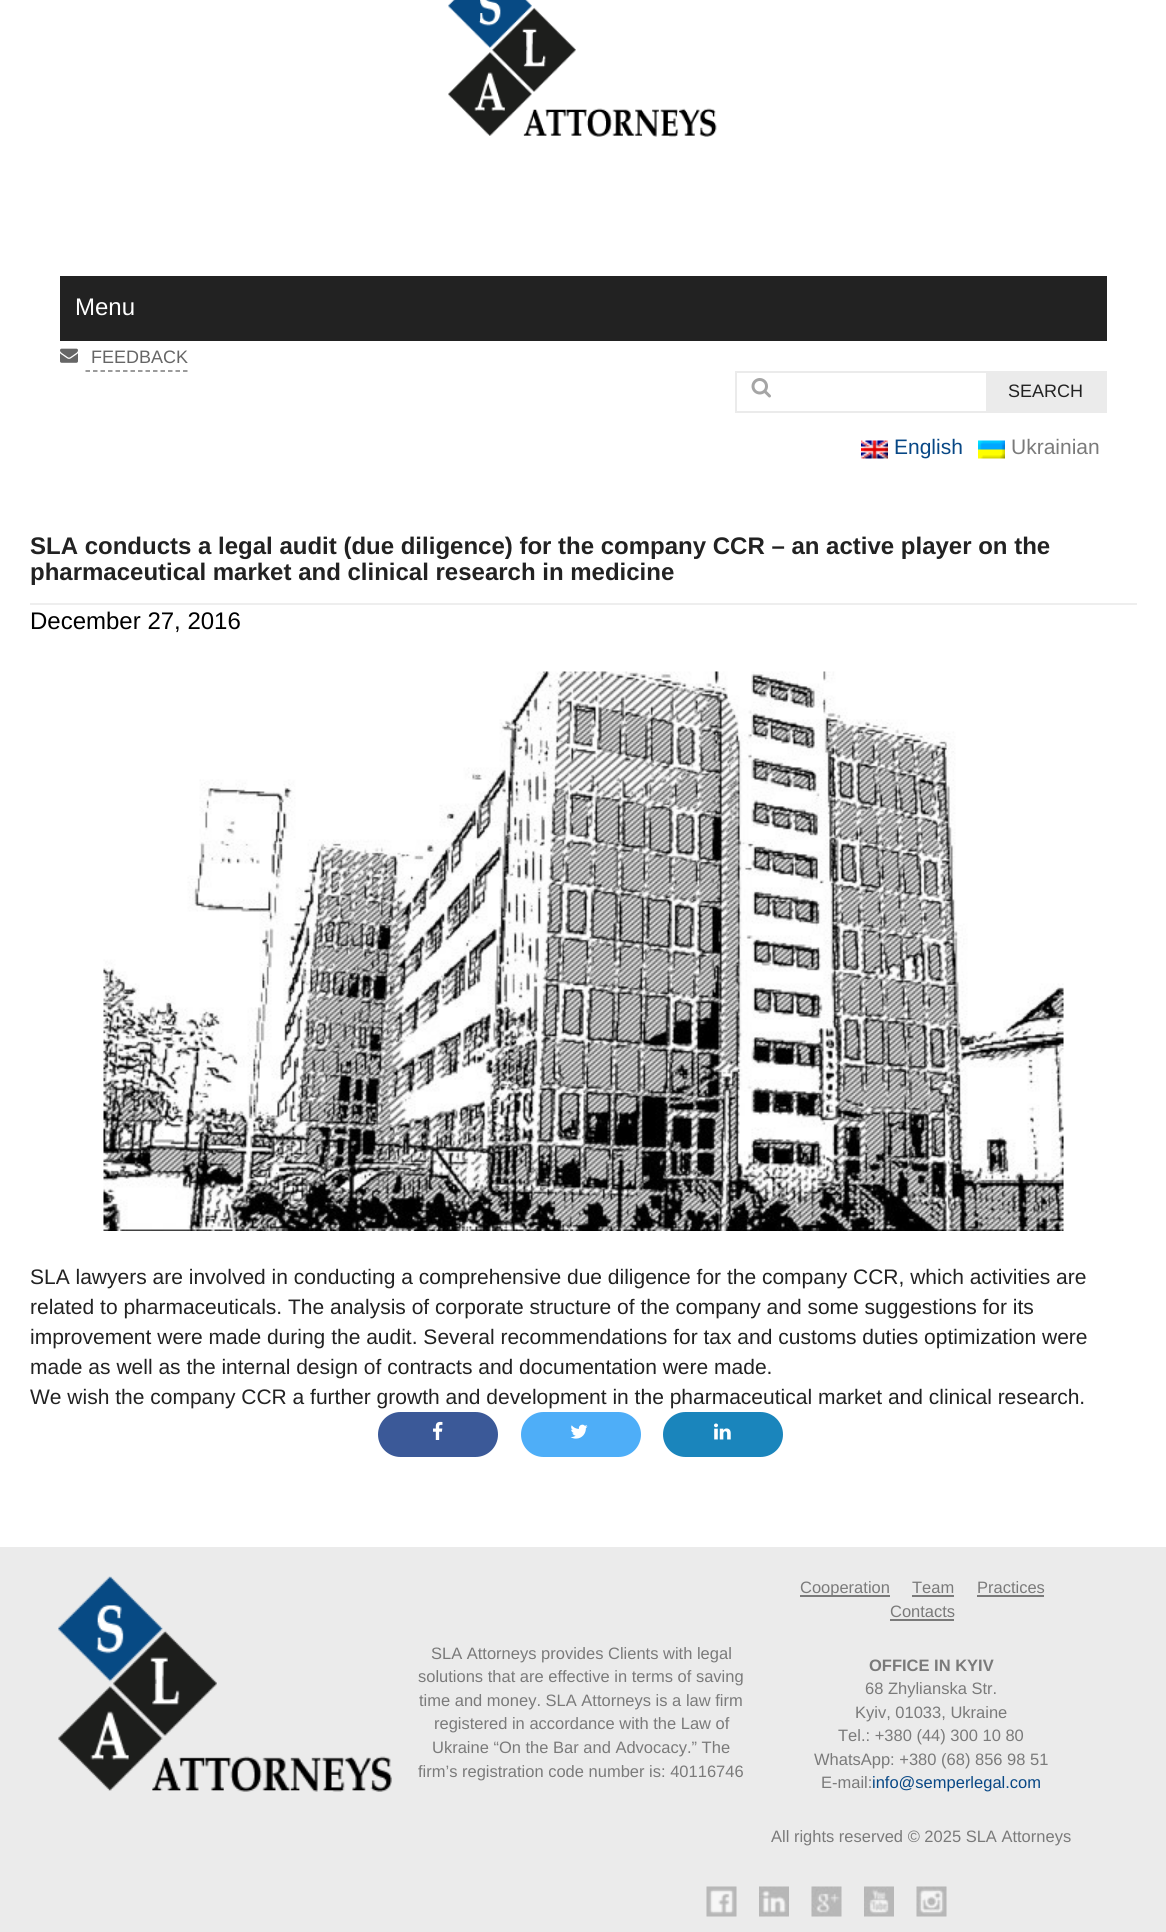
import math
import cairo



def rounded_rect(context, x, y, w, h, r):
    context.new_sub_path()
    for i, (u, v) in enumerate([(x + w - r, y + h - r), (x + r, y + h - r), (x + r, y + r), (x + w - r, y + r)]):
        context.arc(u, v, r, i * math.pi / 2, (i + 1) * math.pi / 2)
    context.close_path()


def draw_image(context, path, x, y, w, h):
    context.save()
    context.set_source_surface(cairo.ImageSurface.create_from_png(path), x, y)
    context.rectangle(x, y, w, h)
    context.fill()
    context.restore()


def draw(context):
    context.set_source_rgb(1, 1, 1)
    context.paint()
    draw_image(context, "images/1.png", 448, 0, 269, 137)
    context.set_source_rgb(34 / 255, 34 / 255, 34 / 255)
    context.rectangle(60, 276, 1047, 65)
    context.fill()
    draw_image(context, "images/2.png", 60, 348, 18, 15)
    context.new_path()
    context.move_to(85.5, 371)
    context.line_to(187.5, 371)
    context.set_source_rgb(122 / 255, 122 / 255, 122 / 255)
    context.set_line_width(1.5)
    context.set_dash([4.5, 3])
    context.stroke()
    context.rectangle(736, 372, 370, 40)
    context.set_source_rgb(235 / 255, 235 / 255, 235 / 255)
    context.set_line_width(2)
    context.set_dash([])
    context.stroke()
    draw_image(context, "images/3.png", 751, 378, 20, 20)
    context.rectangle(986, 373, 119, 38)
    context.fill()
    draw_image(context, "images/4.png", 861, 440, 27, 19)
    draw_image(context, "images/5.png", 978, 440, 27, 19)
    context.set_source_rgb(238 / 255, 238 / 255, 238 / 255)
    context.rectangle(30, 603, 1107, 2)
    context.fill()
    draw_image(context, "images/6.png", 103, 671, 961, 560)
    context.set_source_rgb(59 / 255, 89 / 255, 152 / 255)
    rounded_rect(context, 378, 1412, 120, 45, 22.5)
    context.fill()
    draw_image(context, "images/7.png", 433, 1421, 10, 19)
    context.set_source_rgb(78 / 255, 174 / 255, 248 / 255)
    rounded_rect(context, 521, 1412, 120, 45, 22.5)
    context.fill()
    draw_image(context, "images/8.png", 570, 1424, 18, 15)
    context.set_source_rgb(26 / 255, 133 / 255, 188 / 255)
    rounded_rect(context, 663, 1412, 120, 45, 22.5)
    context.fill()
    draw_image(context, "images/9.png", 714, 1423, 17, 17)
    context.set_source_rgb(235 / 255, 235 / 255, 235 / 255)
    context.rectangle(0, 1547, 1166, 385)
    context.fill()
    draw_image(context, "images/10.png", 58, 1576, 334, 216)
    context.set_source_rgb(122 / 255, 122 / 255, 122 / 255)
    context.rectangle(800, 1595, 90, 2)
    context.fill()
    context.rectangle(912, 1595, 42, 2)
    context.fill()
    context.rectangle(977, 1595, 67, 2)
    context.fill()
    context.rectangle(890, 1619, 64, 2)
    context.fill()
    draw_image(context, "images/11.png", 706, 1886, 31, 31)
    draw_image(context, "images/12.png", 759, 1886, 30, 31)
    draw_image(context, "images/13.png", 811, 1886, 31, 31)
    draw_image(context, "images/14.png", 864, 1886, 30, 31)
    draw_image(context, "images/15.png", 916, 1886, 31, 31)
    context.select_font_face("Liberation Sans")
    context.set_font_size(24)
    context.set_source_rgb(1, 1, 1)
    context.move_to(75, 315)
    context.show_text("Menu")
    context.set_font_size(18)
    context.set_source_rgb(102 / 255, 102 / 255, 102 / 255)
    context.move_to(91, 363)
    context.show_text("FEEDBACK")
    context.set_source_rgb(34 / 255, 34 / 255, 34 / 255)
    context.move_to(1008, 397)
    context.show_text("SEARCH")
    context.set_font_size(21)
    context.set_source_rgb(7 / 255, 71 / 255, 133 / 255)
    context.move_to(894, 454)
    context.show_text("English")
    context.set_source_rgb(122 / 255, 122 / 255, 122 / 255)
    context.move_to(1011, 454)
    context.show_text("Ukrainian")
    context.select_font_face("Liberation Sans", cairo.FontSlant.NORMAL, cairo.FontWeight.BOLD)
    context.set_font_size(24)
    context.set_source_rgb(34 / 255, 34 / 255, 34 / 255)
    context.move_to(30, 554)
    context.show_text("SLA conducts a legal audit (due diligence) for the company CCR – an active player on the")
    context.move_to(30, 580)
    context.show_text("pharmaceutical market and clinical research in medicine")
    context.select_font_face("Liberation Sans")
    context.set_source_rgb(0, 0, 0)
    context.move_to(30, 629)
    context.show_text("December 27, 2016")
    context.set_font_size(21)
    context.set_source_rgb(34 / 255, 34 / 255, 34 / 255)
    context.move_to(30, 1284)
    context.show_text("SLA lawyers are involved in conducting a comprehensive due diligence for the company CCR, which activities are")
    context.move_to(30, 1314)
    context.show_text("related to pharmaceuticals. The analysis of corporate structure of the company and some suggestions for its")
    context.move_to(30, 1344)
    context.show_text("improvement were made during the audit. Several recommendations for tax and customs duties optimization were")
    context.move_to(30, 1374)
    context.show_text("made as well as the internal design of contracts and documentation were made.")
    context.move_to(30, 1404)
    context.show_text("We wish the company CCR a further growth and development in the pharmaceutical market and clinical research.")
    context.set_font_size(16.5)
    context.set_source_rgb(122 / 255, 122 / 255, 122 / 255)
    context.move_to(431, 1659)
    context.show_text("SLA Attorneys provides Clients with legal")
    context.move_to(418, 1682)
    context.show_text("solutions that are effective in terms of saving")
    context.move_to(419, 1706)
    context.show_text("time and money. SLA Attorneys is a law firm")
    context.move_to(434, 1729)
    context.show_text("registered in accordance with the Law of")
    context.move_to(432, 1753)
    context.show_text("Ukraine “On the Bar and Advocacy.” The")
    context.move_to(418, 1777)
    context.show_text("firm’s registration code number is: 40116746")
    context.move_to(800, 1593)
    context.show_text("Cooperation")
    context.move_to(912, 1593)
    context.show_text("Team")
    context.move_to(977, 1593)
    context.show_text("Practices")
    context.move_to(890, 1617)
    context.show_text("Contacts")
    context.select_font_face("Liberation Sans", cairo.FontSlant.NORMAL, cairo.FontWeight.BOLD)
    context.move_to(869, 1671)
    context.show_text("OFFICE IN KYIV")
    context.select_font_face("Liberation Sans")
    context.move_to(865, 1694)
    context.show_text("68 Zhylianska Str.")
    context.move_to(855, 1718)
    context.show_text("Kyiv, 01033, Ukraine")
    context.move_to(838, 1741)
    context.show_text("Tel.: +380 (44) 300 10 80")
    context.move_to(814, 1765)
    context.show_text("WhatsApp: +380 (68) 856 98 51")
    context.move_to(821, 1788)
    context.show_text("E-mail:")
    context.set_source_rgb(7 / 255, 71 / 255, 133 / 255)
    context.move_to(872, 1788)
    context.show_text("info@semperlegal.com")
    context.set_source_rgb(122 / 255, 122 / 255, 122 / 255)
    context.move_to(771, 1842)
    context.show_text("All rights reserved © 2025 SLA Attorneys")


surface = cairo.ImageSurface(cairo.Format.RGB24, 1166, 1932)
context = cairo.Context(surface)
options = cairo.FontOptions()
options.set_hint_metrics(cairo.HintMetrics.OFF)
options.set_hint_style(cairo.HintStyle.NONE)
context.set_font_options(options)
context.set_miter_limit(4)
draw(context)
surface.write_to_png("out.png")
